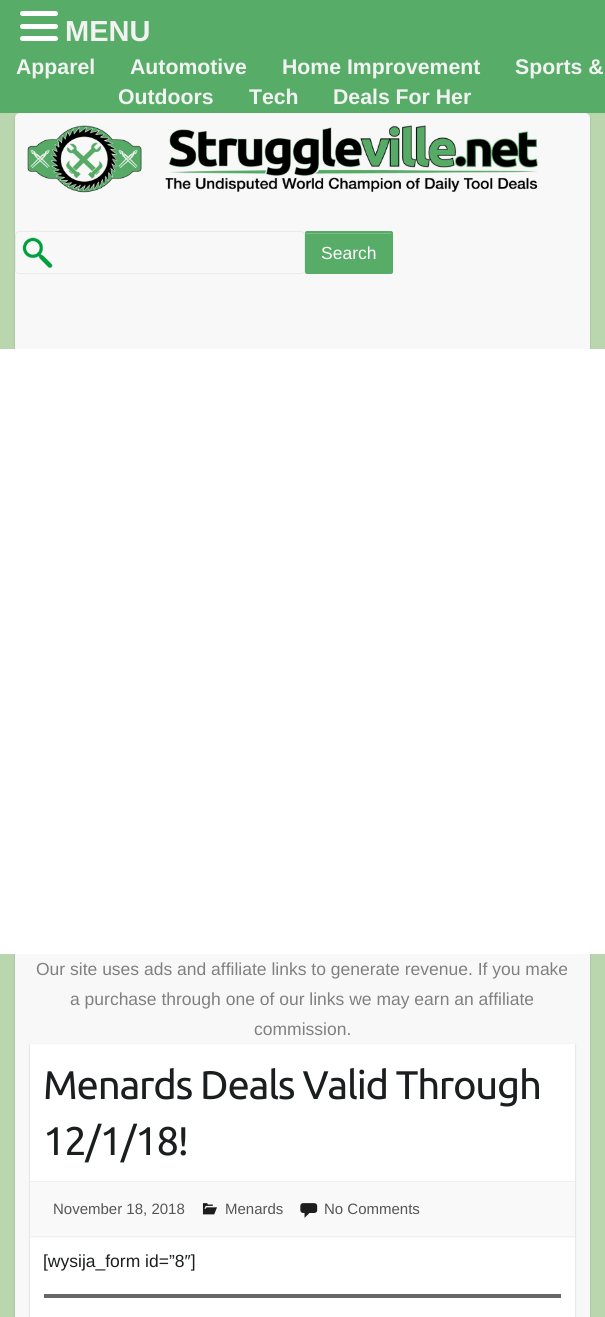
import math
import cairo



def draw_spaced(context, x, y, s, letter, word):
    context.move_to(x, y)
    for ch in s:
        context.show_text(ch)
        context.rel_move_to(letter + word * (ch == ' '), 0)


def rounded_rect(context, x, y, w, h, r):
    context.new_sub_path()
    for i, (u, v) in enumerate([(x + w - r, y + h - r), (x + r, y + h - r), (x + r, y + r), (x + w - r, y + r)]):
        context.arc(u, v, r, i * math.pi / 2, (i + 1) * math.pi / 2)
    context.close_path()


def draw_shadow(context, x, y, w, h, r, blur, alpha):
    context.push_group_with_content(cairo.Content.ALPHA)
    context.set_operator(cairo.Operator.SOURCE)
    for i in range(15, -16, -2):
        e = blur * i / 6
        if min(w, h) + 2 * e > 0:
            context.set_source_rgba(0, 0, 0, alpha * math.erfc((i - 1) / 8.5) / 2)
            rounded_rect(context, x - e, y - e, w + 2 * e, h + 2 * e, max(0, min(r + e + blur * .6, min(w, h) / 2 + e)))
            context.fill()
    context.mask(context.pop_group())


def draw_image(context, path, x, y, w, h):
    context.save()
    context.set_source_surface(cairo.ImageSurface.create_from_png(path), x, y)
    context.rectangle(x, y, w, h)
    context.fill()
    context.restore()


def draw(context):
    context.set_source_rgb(186 / 255, 214 / 255, 175 / 255)
    context.paint()
    context.set_source_rgb(0, 0, 0)
    draw_shadow(context, 15, 114, 575, 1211, 5, 1, 0.2)
    context.set_source_rgb(87 / 255, 173 / 255, 104 / 255)
    context.rectangle(0, 0, 605, 113)
    context.fill()
    context.set_source_rgb(1, 1, 1)
    rounded_rect(context, 20, 11, 38, 5, 2.5)
    context.fill()
    rounded_rect(context, 20, 24, 38, 5, 2.5)
    context.fill()
    rounded_rect(context, 20, 36, 38, 5, 2.5)
    context.fill()
    context.set_source_rgb(248 / 255, 248 / 255, 248 / 255)
    rounded_rect(context, 15, 113, 575, 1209, 5)
    context.fill()
    draw_image(context, "images/1.png", 27, 125, 511, 68)
    draw_image(context, "images/2.png", 22, 237, 31, 31)
    rounded_rect(context, 15.5, 231.5, 289, 42, 3.5)
    context.set_source_rgb(234 / 255, 234 / 255, 234 / 255)
    context.set_line_width(1)
    context.stroke()
    context.set_source_rgb(87 / 255, 173 / 255, 104 / 255)
    rounded_rect(context, 305, 231, 88, 43, 2.5)
    context.fill()
    context.set_source_rgb(121 / 255, 189 / 255, 134 / 255)
    context.new_path()
    context.move_to(308, 234)
    context.line_to(390, 234)
    context.curve_to(391, 234, 391, 234, 391, 235)
    context.curve_to(391, 234, 391, 233, 390, 233)
    context.line_to(307, 233)
    context.curve_to(306, 233, 306, 234, 306, 235)
    context.curve_to(306, 234, 307, 234, 308, 234)
    context.close_path()
    context.fill()
    rounded_rect(context, 305.5, 231.5, 87, 42, 2)
    context.set_source_rgb(87 / 255, 173 / 255, 104 / 255)
    context.stroke()
    context.set_source_rgb(1, 1, 1)
    context.rectangle(0, 349, 605, 605)
    context.fill()
    context.set_source_rgb(0, 0, 0)
    draw_shadow(context, 30, 1045, 545, 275, 0, 1, 0.2)
    context.set_source_rgb(1, 1, 1)
    context.rectangle(30, 1044, 545, 273)
    context.fill()
    context.set_source_rgb(249 / 255, 249 / 255, 249 / 255)
    context.rectangle(30, 1182, 545, 56)
    context.fill()
    context.set_source_rgb(240 / 255, 240 / 255, 240 / 255)
    context.rectangle(30, 1181, 545, 1)
    context.fill()
    context.rectangle(30, 1236, 545, 1)
    context.fill()
    draw_image(context, "images/3.png", 202, 1203, 15, 12)
    draw_image(context, "images/4.png", 300, 1203, 18, 15)
    context.set_source_rgb(102 / 255, 102 / 255, 102 / 255)
    context.rectangle(44, 1294, 517, 4)
    context.fill()
    context.select_font_face("Liberation Sans", cairo.FontSlant.NORMAL, cairo.FontWeight.BOLD)
    context.set_font_size(29)
    context.set_source_rgb(242 / 255, 242 / 255, 242 / 255)
    context.move_to(65, 41)
    context.show_text("MENU")
    context.set_font_size(21.25)
    context.move_to(16, 74)
    context.show_text("Apparel")
    context.move_to(130, 74)
    context.show_text("Automotive")
    context.move_to(282, 74)
    context.show_text("Home Improvement")
    context.move_to(515, 74)
    context.show_text("Sports &")
    context.move_to(118, 104)
    context.show_text("Outdoors")
    context.move_to(249, 104)
    context.show_text("Tech")
    context.move_to(333, 104)
    context.show_text("Deals For Her")
    context.select_font_face("Liberation Sans")
    context.set_font_size(17.5)
    context.set_source_rgb(1, 1, 1)
    context.move_to(321, 259)
    context.show_text("Search")
    context.set_source_rgb(128 / 255, 128 / 255, 128 / 255)
    context.move_to(36, 975)
    context.show_text("Our site uses ads and affiliate links to generate revenue. If you make")
    context.move_to(70, 1005)
    context.show_text("a purchase through one of our links we may earn an affiliate")
    context.move_to(254, 1035)
    context.show_text("commission.")
    context.select_font_face("Ubuntu")
    context.set_font_size(40)
    context.set_source_rgb(27 / 255, 30 / 255, 31 / 255)
    draw_spaced(context, 43, 1099, "Menards Deals Valid Through", -1.25, 0)
    draw_spaced(context, 43, 1155, "12/1/18!", -1.25, 0)
    context.select_font_face("Liberation Sans")
    context.set_font_size(15)
    context.set_source_rgb(85 / 255, 85 / 255, 85 / 255)
    context.move_to(53, 1214)
    context.show_text("November 18, 2018")
    context.move_to(225, 1214)
    context.show_text("Menards")
    context.move_to(324, 1214)
    context.show_text("No Comments")
    context.set_font_size(17.5)
    context.set_source_rgb(27 / 255, 30 / 255, 31 / 255)
    context.move_to(43, 1267)
    context.show_text("[wysija_form id=”8″]")


surface = cairo.ImageSurface(cairo.Format.RGB24, 605, 1317)
context = cairo.Context(surface)
options = cairo.FontOptions()
options.set_hint_metrics(cairo.HintMetrics.OFF)
options.set_hint_style(cairo.HintStyle.NONE)
context.set_font_options(options)
context.set_miter_limit(4)
draw(context)
surface.write_to_png("out.png")
